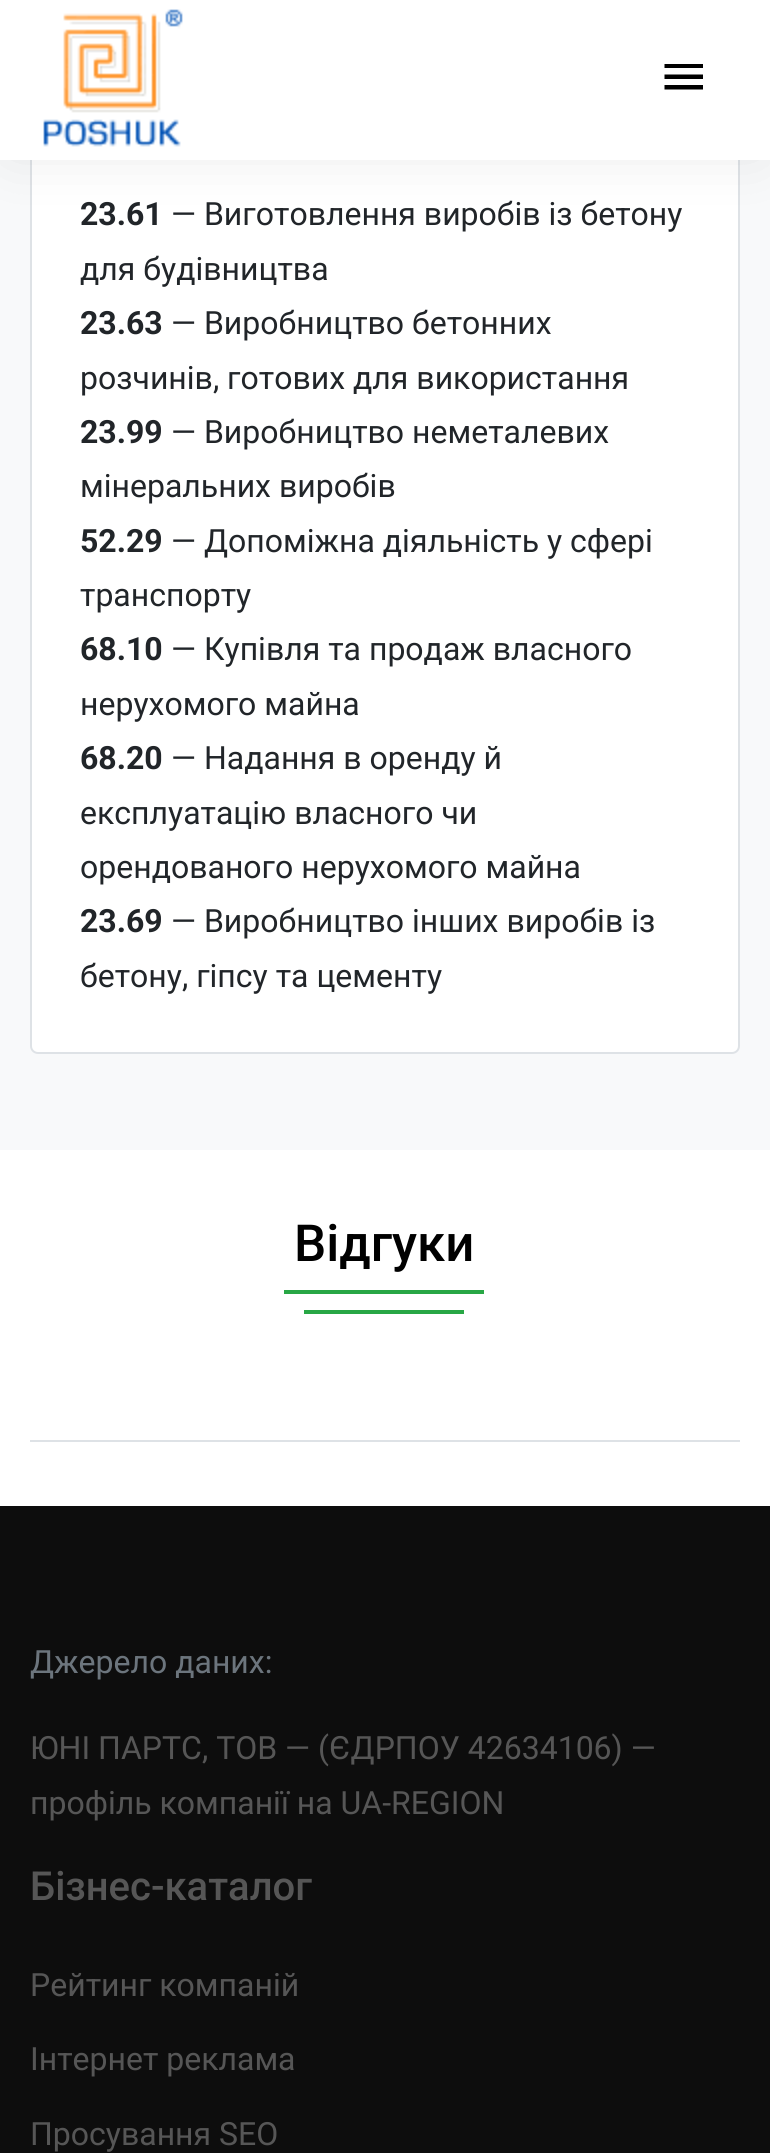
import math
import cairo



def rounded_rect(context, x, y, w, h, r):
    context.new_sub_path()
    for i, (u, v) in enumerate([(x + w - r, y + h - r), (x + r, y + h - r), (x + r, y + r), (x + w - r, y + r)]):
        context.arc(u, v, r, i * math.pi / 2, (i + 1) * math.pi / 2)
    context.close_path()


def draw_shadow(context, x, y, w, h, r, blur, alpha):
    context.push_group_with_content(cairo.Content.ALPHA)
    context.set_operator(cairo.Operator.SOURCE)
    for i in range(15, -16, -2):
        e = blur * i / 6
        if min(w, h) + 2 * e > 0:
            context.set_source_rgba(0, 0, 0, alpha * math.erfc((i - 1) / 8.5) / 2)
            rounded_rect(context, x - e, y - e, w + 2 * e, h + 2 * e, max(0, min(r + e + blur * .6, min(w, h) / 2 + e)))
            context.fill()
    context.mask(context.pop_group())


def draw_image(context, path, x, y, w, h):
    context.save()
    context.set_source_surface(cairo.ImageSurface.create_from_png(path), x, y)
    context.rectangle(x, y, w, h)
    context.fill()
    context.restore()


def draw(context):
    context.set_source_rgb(1, 1, 1)
    context.paint()
    context.set_source_rgb(248 / 255, 249 / 255, 250 / 255)
    context.rectangle(0, 160, 770, 990)
    context.fill()
    context.set_source_rgb(1, 1, 1)
    rounded_rect(context, 31, -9, 708, 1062, 7)
    context.fill_preserve()
    context.set_source_rgb(222 / 255, 226 / 255, 230 / 255)
    context.stroke()
    context.set_source_rgb(0, 0, 0)
    draw_shadow(context, 10, 10, 750, 140, 0, 30, 0.1)
    context.set_source_rgb(1, 1, 1)
    context.rectangle(0, 0, 770, 160)
    context.fill()
    draw_image(context, "images/1.png", 43, 9, 140, 138)
    context.set_source_rgb(0, 0, 0)
    context.new_path()
    context.move_to(664.5, 64)
    context.line_to(703, 64)
    context.line_to(703, 68)
    context.line_to(664.5, 68)
    context.close_path()
    context.move_to(664.5, 79)
    context.line_to(664.5, 74.5)
    context.line_to(703, 74.5)
    context.line_to(703, 79)
    context.close_path()
    context.move_to(664.5, 89.5)
    context.line_to(664.5, 85)
    context.line_to(703, 85)
    context.line_to(703, 89.5)
    context.close_path()
    context.fill()
    context.set_source_rgb(40 / 255, 167 / 255, 69 / 255)
    context.rectangle(284, 1290, 200, 4)
    context.fill()
    context.rectangle(304, 1310, 160, 4)
    context.fill()
    context.set_source_rgb(222 / 255, 226 / 255, 230 / 255)
    context.rectangle(30, 1440, 710, 2)
    context.fill()
    context.set_source_rgb(13 / 255, 13 / 255, 13 / 255)
    context.rectangle(0, 1506, 770, 647)
    context.fill()
    context.select_font_face("Roboto", cairo.FontSlant.NORMAL, cairo.FontWeight.BOLD)
    context.set_font_size(32)
    context.set_source_rgb(33 / 255, 37 / 255, 41 / 255)
    context.move_to(80, 225)
    context.show_text("23.61")
    context.select_font_face("Roboto")
    context.move_to(171, 225)
    context.show_text("— Виготовлення виробів із бетону")
    context.move_to(80, 280)
    context.show_text("для будівництва")
    context.select_font_face("Roboto", cairo.FontSlant.NORMAL, cairo.FontWeight.BOLD)
    context.move_to(80, 334)
    context.show_text("23.63")
    context.select_font_face("Roboto")
    context.move_to(171, 334)
    context.show_text("— Виробництво бетонних")
    context.move_to(80, 389)
    context.show_text("розчинів, готових для використання")
    context.select_font_face("Roboto", cairo.FontSlant.NORMAL, cairo.FontWeight.BOLD)
    context.move_to(80, 443)
    context.show_text("23.99")
    context.select_font_face("Roboto")
    context.move_to(171, 443)
    context.show_text("— Виробництво неметалевих")
    context.move_to(80, 497)
    context.show_text("мінеральних виробів")
    context.select_font_face("Roboto", cairo.FontSlant.NORMAL, cairo.FontWeight.BOLD)
    context.move_to(80, 552)
    context.show_text("52.29")
    context.select_font_face("Roboto")
    context.move_to(171, 552)
    context.show_text("— Допоміжна діяльність у сфері")
    context.move_to(80, 606)
    context.show_text("транспорту")
    context.select_font_face("Roboto", cairo.FontSlant.NORMAL, cairo.FontWeight.BOLD)
    context.move_to(80, 660)
    context.show_text("68.10")
    context.select_font_face("Roboto")
    context.move_to(171, 660)
    context.show_text("— Купівля та продаж власного")
    context.move_to(80, 715)
    context.show_text("нерухомого майна")
    context.select_font_face("Roboto", cairo.FontSlant.NORMAL, cairo.FontWeight.BOLD)
    context.move_to(80, 769)
    context.show_text("68.20")
    context.select_font_face("Roboto")
    context.move_to(171, 769)
    context.show_text("— Надання в оренду й")
    context.move_to(80, 824)
    context.show_text("експлуатацію власного чи")
    context.move_to(80, 878)
    context.show_text("орендованого нерухомого майна")
    context.select_font_face("Roboto", cairo.FontSlant.NORMAL, cairo.FontWeight.BOLD)
    context.move_to(80, 932)
    context.show_text("23.69")
    context.select_font_face("Roboto")
    context.move_to(171, 932)
    context.show_text("— Виробництво інших виробів із")
    context.move_to(80, 987)
    context.show_text("бетону, гіпсу та цементу")
    context.select_font_face("Roboto Medium")
    context.set_font_size(51)
    context.set_source_rgb(0, 0, 0)
    context.move_to(294, 1261)
    context.show_text("Відгуки")
    context.select_font_face("Roboto")
    context.set_font_size(32)
    context.set_source_rgb(108 / 255, 117 / 255, 125 / 255)
    context.move_to(30, 1673)
    context.show_text("Джерело даних:")
    context.set_source_rgb(86 / 255, 86 / 255, 86 / 255)
    context.move_to(30, 1759)
    context.show_text("ЮНІ ПАРТС, ТОВ — (ЄДРПОУ 42634106) —")
    context.move_to(30, 1814)
    context.show_text("профіль компанії на UA-REGION")
    context.select_font_face("Roboto Medium")
    context.set_font_size(40)
    context.move_to(30, 1900)
    context.show_text("Бізнес-каталог")
    context.select_font_face("Roboto")
    context.set_font_size(32)
    context.move_to(30, 1996)
    context.show_text("Рейтинг компаній")
    context.move_to(30, 2070)
    context.show_text("Інтернет реклама")
    context.move_to(30, 2145)
    context.show_text("Просування SEO")


surface = cairo.ImageSurface(cairo.Format.RGB24, 770, 2153)
context = cairo.Context(surface)
options = cairo.FontOptions()
options.set_hint_metrics(cairo.HintMetrics.OFF)
options.set_hint_style(cairo.HintStyle.NONE)
context.set_font_options(options)
context.set_miter_limit(4)
draw(context)
surface.write_to_png("out.png")
